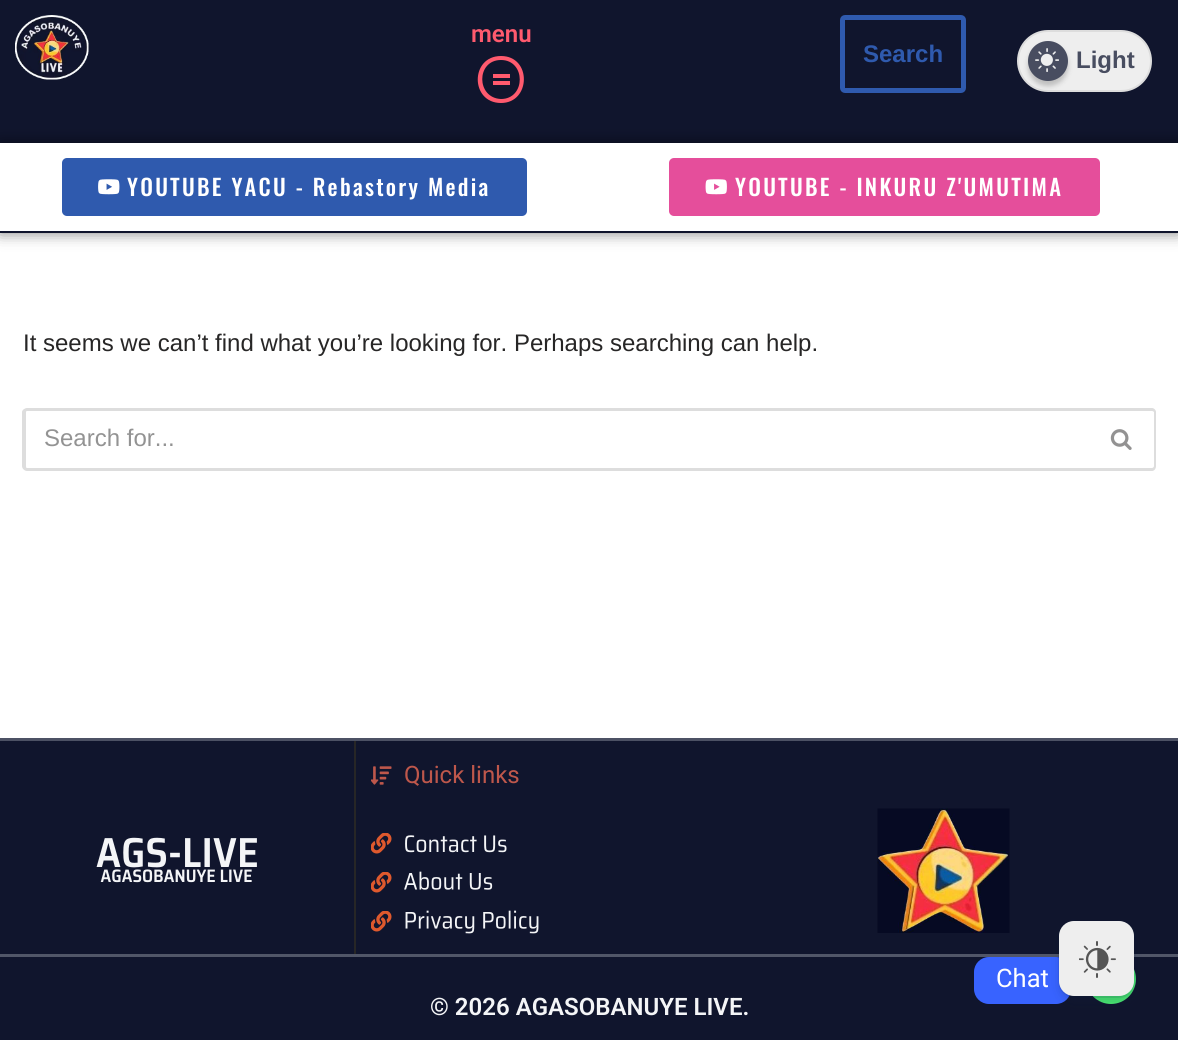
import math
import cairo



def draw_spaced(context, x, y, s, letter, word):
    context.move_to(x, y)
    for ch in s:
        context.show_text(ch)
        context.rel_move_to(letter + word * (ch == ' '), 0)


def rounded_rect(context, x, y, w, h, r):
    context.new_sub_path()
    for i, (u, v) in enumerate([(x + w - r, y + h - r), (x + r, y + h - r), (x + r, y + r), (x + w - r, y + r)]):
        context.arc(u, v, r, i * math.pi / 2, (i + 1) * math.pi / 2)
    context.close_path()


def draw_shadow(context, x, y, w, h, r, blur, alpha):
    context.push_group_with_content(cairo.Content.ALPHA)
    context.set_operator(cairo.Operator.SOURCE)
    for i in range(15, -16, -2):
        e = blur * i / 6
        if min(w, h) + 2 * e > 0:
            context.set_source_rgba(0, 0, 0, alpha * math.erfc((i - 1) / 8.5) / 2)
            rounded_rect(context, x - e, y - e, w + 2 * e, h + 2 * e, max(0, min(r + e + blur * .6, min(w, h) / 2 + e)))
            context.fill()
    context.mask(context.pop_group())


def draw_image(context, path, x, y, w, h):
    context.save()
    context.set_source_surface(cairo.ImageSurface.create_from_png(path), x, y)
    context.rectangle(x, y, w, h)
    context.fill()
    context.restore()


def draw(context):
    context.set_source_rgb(1, 1, 1)
    context.paint()
    context.set_source_rgb(16 / 255, 21 / 255, 45 / 255)
    context.rectangle(0, 0, 1178, 143)
    context.fill()
    draw_image(context, "images/1.png", 15, 15, 74, 65)
    context.set_source_rgb(1, 90 / 255, 110 / 255)
    context.new_path()
    context.move_to(501, 56)
    context.curve_to(532, 56, 531, 103, 501, 103)
    context.curve_to(470, 103, 470, 56, 501, 56)
    context.close_path()
    context.move_to(501, 60)
    context.curve_to(476, 60, 476, 98, 501, 99)
    context.curve_to(526, 99, 526, 60, 501, 60)
    context.close_path()
    context.move_to(510, 74)
    context.line_to(510, 78)
    context.line_to(493, 78)
    context.line_to(493, 74)
    context.close_path()
    context.move_to(510, 81)
    context.line_to(510, 85)
    context.line_to(493, 85)
    context.line_to(493, 81)
    context.close_path()
    context.fill()
    rounded_rect(context, 842.5, 17.5, 121, 73, 2.5)
    context.set_source_rgb(47 / 255, 90 / 255, 174 / 255)
    context.set_line_width(5)
    context.stroke()
    context.set_source_rgb(238 / 255, 238 / 255, 238 / 255)
    rounded_rect(context, 1018, 31, 133, 60, 30)
    context.fill_preserve()
    context.set_source_rgb(221 / 255, 221 / 255, 221 / 255)
    context.set_line_width(2)
    context.stroke()
    context.set_source_rgb(0, 0, 0)
    draw_shadow(context, 1028, 45, 40, 41, 20, 2.5, 0.2)
    context.set_source_rgb(72 / 255, 77 / 255, 96 / 255)
    context.arc(1048, 61, 20, 0, 2 * math.pi)
    context.fill()
    draw_image(context, "images/2.png", 1035, 48, 24, 24)
    context.save()
    context.set_fill_rule(cairo.FillRule.EVEN_ODD)
    context.new_path()
    context.move_to(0, 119)
    context.line_to(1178, 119)
    context.line_to(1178, 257)
    context.line_to(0, 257)
    context.close_path()
    context.move_to(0, 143)
    context.line_to(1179, 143)
    context.line_to(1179, 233)
    context.line_to(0, 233)
    context.close_path()
    context.clip()
    context.set_source_rgb(0, 0, 0)
    draw_shadow(context, 0, 143, 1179, 90, 0, 7.5, 0.5)
    context.restore()
    context.set_source_rgba(6 / 255, 11 / 255, 36 / 255, 0.96)
    context.rectangle(0, 231, 1178, 2)
    context.fill()
    context.set_source_rgb(47 / 255, 90 / 255, 174 / 255)
    rounded_rect(context, 62, 158, 465, 58, 5)
    context.fill()
    draw_image(context, "images/3.png", 98, 179, 22, 16)
    context.set_source_rgb(229 / 255, 78 / 255, 155 / 255)
    rounded_rect(context, 669, 158, 431, 58, 5)
    context.fill()
    draw_image(context, "images/4.png", 705, 179, 22, 16)
    context.set_source_rgb(221 / 255, 221 / 255, 221 / 255)
    context.set_fill_rule(cairo.FillRule.EVEN_ODD)
    context.new_path()
    context.move_to(27, 408)
    context.line_to(1089, 408)
    context.line_to(1089, 471)
    context.line_to(27, 471)
    context.curve_to(25, 471, 22, 469, 22, 466)
    context.line_to(22, 412)
    context.curve_to(22, 410, 25, 408, 27, 408)
    context.close_path()
    context.move_to(27, 411)
    context.line_to(1089, 411)
    context.line_to(1089, 468)
    context.line_to(27, 468)
    context.curve_to(26, 468, 26, 467, 26, 466)
    context.line_to(26, 412)
    context.curve_to(26, 412, 26, 411, 27, 411)
    context.close_path()
    context.fill()
    context.new_path()
    context.move_to(1089, 408)
    context.line_to(1152, 408)
    context.curve_to(1154, 408, 1156, 410, 1156, 412)
    context.line_to(1156, 466)
    context.curve_to(1156, 469, 1154, 471, 1152, 471)
    context.line_to(1089, 471)
    context.close_path()
    context.move_to(1089, 411)
    context.line_to(1152, 411)
    context.curve_to(1153, 411, 1154, 412, 1154, 412)
    context.line_to(1154, 466)
    context.curve_to(1154, 467, 1153, 468, 1152, 468)
    context.line_to(1089, 468)
    context.close_path()
    context.fill()
    draw_image(context, "images/5.png", 1110, 429, 22, 21)
    context.set_source_rgb(16 / 255, 21 / 255, 45 / 255)
    context.rectangle(0, 741, 1178, 213)
    context.fill()
    context.set_source_rgb(76 / 255, 81 / 255, 100 / 255)
    context.rectangle(0, 738, 1178, 3)
    context.fill()
    context.set_source_rgb(39 / 255, 38 / 255, 38 / 255)
    context.rectangle(354, 741, 2, 213)
    context.fill()
    draw_image(context, "images/6.png", 371, 766, 21, 19)
    draw_image(context, "images/7.png", 371, 833, 21, 21)
    draw_image(context, "images/8.png", 405, 835, 102, 18)
    draw_image(context, "images/7.png", 371, 872, 21, 21)
    draw_image(context, "images/9.png", 404, 871, 89, 19)
    draw_image(context, "images/7.png", 371, 911, 21, 21)
    draw_image(context, "images/10.png", 405, 910, 134, 24)
    draw_image(context, "images/11.png", 96, 837, 161, 31)
    draw_image(context, "images/12.png", 100, 869, 152, 14)
    draw_image(context, "images/13.png", 877, 808, 133, 125)
    context.set_source_rgb(16 / 255, 21 / 255, 45 / 255)
    context.rectangle(0, 957, 1178, 83)
    context.fill()
    context.set_source_rgb(81 / 255, 86 / 255, 104 / 255)
    context.rectangle(0, 954, 1178, 3)
    context.fill()
    context.set_source_rgb(56 / 255, 99 / 255, 1)
    rounded_rect(context, 974, 957, 97, 47, 15)
    context.fill()
    context.set_source_rgb(73 / 255, 230 / 255, 112 / 255)
    context.arc(1111, 979, 25, 0, 2 * math.pi)
    context.fill()
    draw_image(context, "images/14.png", 1093, 991, 37, 7)
    rounded_rect(context, 1059, 921, 76, 76, 16)
    context.set_source_rgba(9 / 255, 30 / 255, 66 / 255, 0.08)
    context.stroke()
    context.set_source_rgb(9 / 255, 30 / 255, 66 / 255)
    draw_shadow(context, 1062, 930, 69, 69, 12, 6, 0.25)
    context.set_source_rgb(238 / 255, 238 / 255, 238 / 255)
    rounded_rect(context, 1059, 921, 75, 75, 15)
    context.fill()
    draw_image(context, "images/15.png", 1079, 941, 37, 37)
    context.select_font_face("Roboto SemiBold")
    context.set_font_size(24)
    context.set_source_rgb(1, 90 / 255, 110 / 255)
    context.move_to(471, 42)
    context.show_text("menu")
    context.select_font_face("Liberation Sans", cairo.FontSlant.NORMAL, cairo.FontWeight.BOLD)
    context.set_source_rgb(47 / 255, 90 / 255, 174 / 255)
    context.move_to(863, 62)
    context.show_text("Search")
    context.set_source_rgb(72 / 255, 77 / 255, 96 / 255)
    context.move_to(1076, 68)
    context.show_text("Light")
    context.select_font_face("Oswald Medium")
    context.set_font_size(22.5)
    context.set_source_rgb(1, 1, 1)
    draw_spaced(context, 127, 196, "YOUTUBE YACU - Rebastory Media", 2.25, 0)
    draw_spaced(context, 735, 196, "YOUTUBE - INKURU Z'UMUTIMA", 2.25, 0)
    context.select_font_face("Liberation Sans")
    context.set_font_size(24)
    context.set_source_rgb(39 / 255, 38 / 255, 38 / 255)
    context.move_to(23, 351)
    context.show_text("It seems we can’t find what you’re looking for. Perhaps searching can help.")
    context.set_source_rgb(147 / 255, 147 / 255, 147 / 255)
    context.move_to(44, 446)
    context.show_text("Search for...")
    context.select_font_face("Roboto")
    context.set_source_rgb(190 / 255, 87 / 255, 75 / 255)
    context.move_to(404, 783)
    context.show_text("Quick links")
    context.select_font_face("Roboto SemiBold")
    context.set_source_rgb(244 / 255, 245 / 255, 247 / 255)
    context.move_to(430, 1015)
    context.show_text("© 2026 AGASOBANUYE LIVE.")
    context.select_font_face("Roboto")
    context.set_font_size(25.5)
    context.set_source_rgb(1, 1, 1)
    context.move_to(996, 987)
    context.show_text("Chat")


surface = cairo.ImageSurface(cairo.Format.RGB24, 1178, 1040)
context = cairo.Context(surface)
options = cairo.FontOptions()
options.set_hint_metrics(cairo.HintMetrics.OFF)
options.set_hint_style(cairo.HintStyle.NONE)
context.set_font_options(options)
context.set_miter_limit(4)
draw(context)
surface.write_to_png("out.png")
